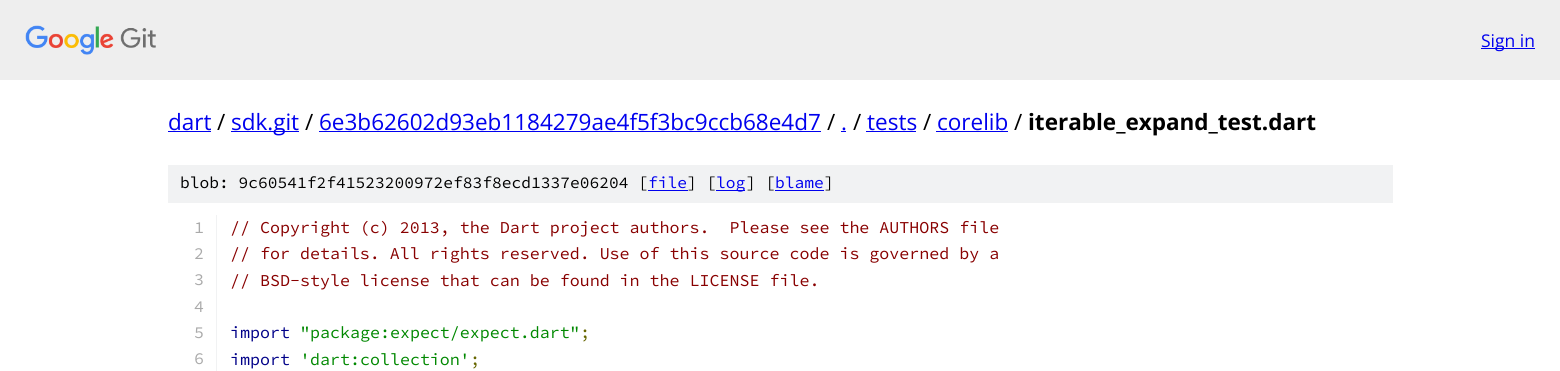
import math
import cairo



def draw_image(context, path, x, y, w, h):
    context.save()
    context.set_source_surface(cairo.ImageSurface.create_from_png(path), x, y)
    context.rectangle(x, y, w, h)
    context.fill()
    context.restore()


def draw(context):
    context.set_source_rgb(1, 1, 1)
    context.paint()
    context.set_source_rgb(238 / 255, 238 / 255, 238 / 255)
    context.rectangle(0, 0, 1560, 80)
    context.fill()
    draw_image(context, "images/1.png", 25, 25, 131, 30)
    context.set_source_rgb(0, 0, 238 / 255)
    context.rectangle(1481, 48, 54, 1)
    context.fill()
    context.rectangle(168, 131, 43, 1)
    context.fill()
    context.rectangle(231, 131, 68, 1)
    context.fill()
    context.rectangle(319, 131, 502, 1)
    context.fill()
    context.rectangle(841, 131, 5, 1)
    context.fill()
    context.rectangle(866, 131, 50, 1)
    context.fill()
    context.rectangle(936, 131, 72, 1)
    context.fill()
    context.set_source_rgb(241 / 255, 242 / 255, 243 / 255)
    context.rectangle(168, 165, 1225, 38)
    context.fill()
    context.set_source_rgb(0, 0, 238 / 255)
    context.rectangle(648, 190, 40, 1)
    context.fill()
    context.rectangle(716, 190, 29, 1)
    context.fill()
    context.rectangle(775, 190, 49, 1)
    context.fill()
    context.set_source_rgb(241 / 255, 242 / 255, 243 / 255)
    context.rectangle(216, 215, 1, 156)
    context.fill()
    context.select_font_face("Open Sans")
    context.set_font_size(17.5)
    context.set_source_rgb(0, 0, 238 / 255)
    context.move_to(1481, 47)
    context.show_text("Sign in")
    context.set_font_size(22.5)
    context.move_to(168, 130)
    context.show_text("dart")
    context.set_source_rgb(0, 0, 0)
    context.move_to(217, 130)
    context.show_text("/")
    context.set_source_rgb(0, 0, 238 / 255)
    context.move_to(231, 130)
    context.show_text("sdk.git")
    context.set_source_rgb(0, 0, 0)
    context.move_to(305, 130)
    context.show_text("/")
    context.set_source_rgb(0, 0, 238 / 255)
    context.move_to(319, 130)
    context.show_text("6e3b62602d93eb1184279ae4f5f3bc9ccb68e4d7")
    context.set_source_rgb(0, 0, 0)
    context.move_to(827, 130)
    context.show_text("/")
    context.set_source_rgb(0, 0, 238 / 255)
    context.move_to(841, 130)
    context.show_text(".")
    context.set_source_rgb(0, 0, 0)
    context.move_to(853, 130)
    context.show_text("/")
    context.set_source_rgb(0, 0, 238 / 255)
    context.move_to(867, 130)
    context.show_text("tests")
    context.set_source_rgb(0, 0, 0)
    context.move_to(923, 130)
    context.show_text("/")
    context.set_source_rgb(0, 0, 238 / 255)
    context.move_to(937, 130)
    context.show_text("corelib")
    context.set_source_rgb(0, 0, 0)
    context.move_to(1014, 130)
    context.show_text("/")
    context.select_font_face("Open Sans", cairo.FontSlant.NORMAL, cairo.FontWeight.BOLD)
    context.move_to(1028, 130)
    context.show_text("iterable_expand_test.dart")
    context.select_font_face("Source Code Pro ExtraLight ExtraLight")
    context.set_font_size(16.25)
    context.move_to(180, 188)
    context.show_text("blob: 9c60541f2f41523200972ef83f8ecd1337e06204 [")
    context.set_source_rgb(0, 0, 238 / 255)
    context.move_to(648, 188)
    context.show_text("file")
    context.set_source_rgb(0, 0, 0)
    context.move_to(687, 188)
    context.show_text("] [")
    context.set_source_rgb(0, 0, 238 / 255)
    context.move_to(716, 188)
    context.show_text("log")
    context.set_source_rgb(0, 0, 0)
    context.move_to(746, 188)
    context.show_text("] [")
    context.set_source_rgb(0, 0, 238 / 255)
    context.move_to(775, 188)
    context.show_text("blame")
    context.set_source_rgb(0, 0, 0)
    context.move_to(824, 188)
    context.show_text("]")
    context.set_font_size(16.65)
    context.set_source_rgb(170 / 255, 170 / 255, 170 / 255)
    context.move_to(194, 233)
    context.show_text("1")
    context.set_source_rgb(136 / 255, 0, 0)
    context.move_to(230, 233)
    context.show_text("// Copyright (c) 2013, the Dart project authors.  Please see the AUTHORS file")
    context.set_source_rgb(170 / 255, 170 / 255, 170 / 255)
    context.move_to(194, 259)
    context.show_text("2")
    context.set_source_rgb(136 / 255, 0, 0)
    context.move_to(230, 259)
    context.show_text("// for details. All rights reserved. Use of this source code is governed by a")
    context.set_source_rgb(170 / 255, 170 / 255, 170 / 255)
    context.move_to(194, 285)
    context.show_text("3")
    context.set_source_rgb(136 / 255, 0, 0)
    context.move_to(230, 286)
    context.show_text("// BSD-style license that can be found in the LICENSE file.")
    context.set_source_rgb(170 / 255, 170 / 255, 170 / 255)
    context.move_to(194, 312)
    context.show_text("4")
    context.move_to(194, 338)
    context.show_text("5")
    context.set_source_rgb(0, 0, 136 / 255)
    context.move_to(230, 338)
    context.show_text("import")
    context.set_source_rgb(0, 136 / 255, 0)
    context.move_to(300, 338)
    context.show_text("\"package:expect/expect.dart\"")
    context.set_source_rgb(102 / 255, 102 / 255, 0)
    context.move_to(580, 338)
    context.show_text(";")
    context.set_source_rgb(170 / 255, 170 / 255, 170 / 255)
    context.move_to(194, 364)
    context.show_text("6")
    context.set_source_rgb(0, 0, 136 / 255)
    context.move_to(230, 365)
    context.show_text("import")
    context.set_source_rgb(0, 136 / 255, 0)
    context.move_to(300, 365)
    context.show_text("'dart:collection'")
    context.set_source_rgb(102 / 255, 102 / 255, 0)
    context.move_to(470, 365)
    context.show_text(";")


surface = cairo.ImageSurface(cairo.Format.RGB24, 1560, 371)
context = cairo.Context(surface)
options = cairo.FontOptions()
options.set_hint_metrics(cairo.HintMetrics.OFF)
options.set_hint_style(cairo.HintStyle.NONE)
context.set_font_options(options)
context.set_miter_limit(4)
draw(context)
surface.write_to_png("out.png")
